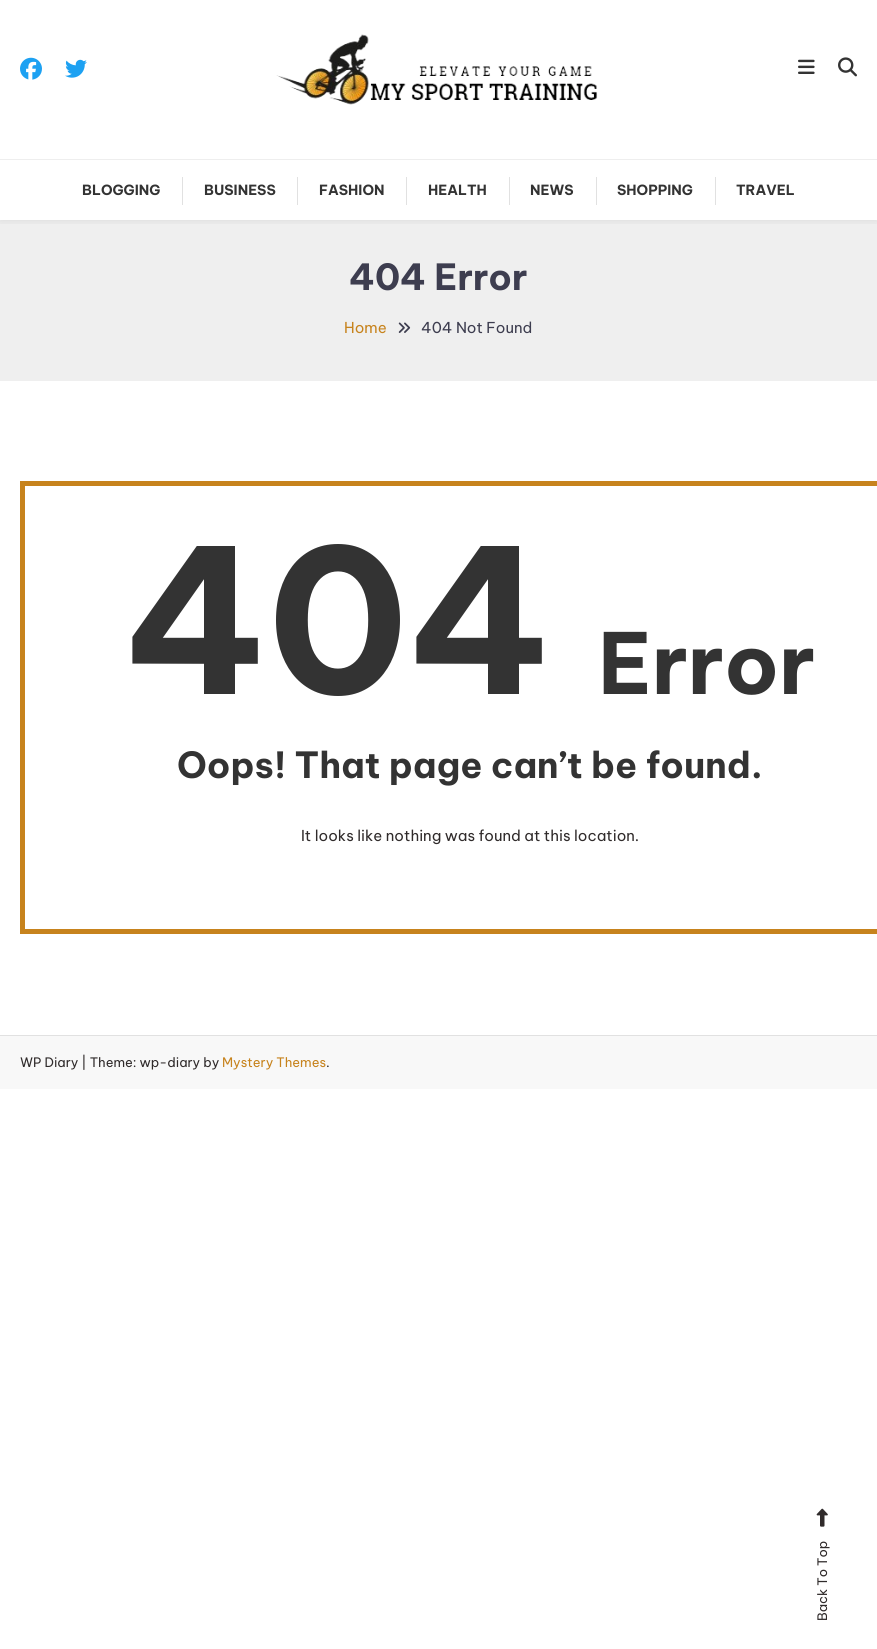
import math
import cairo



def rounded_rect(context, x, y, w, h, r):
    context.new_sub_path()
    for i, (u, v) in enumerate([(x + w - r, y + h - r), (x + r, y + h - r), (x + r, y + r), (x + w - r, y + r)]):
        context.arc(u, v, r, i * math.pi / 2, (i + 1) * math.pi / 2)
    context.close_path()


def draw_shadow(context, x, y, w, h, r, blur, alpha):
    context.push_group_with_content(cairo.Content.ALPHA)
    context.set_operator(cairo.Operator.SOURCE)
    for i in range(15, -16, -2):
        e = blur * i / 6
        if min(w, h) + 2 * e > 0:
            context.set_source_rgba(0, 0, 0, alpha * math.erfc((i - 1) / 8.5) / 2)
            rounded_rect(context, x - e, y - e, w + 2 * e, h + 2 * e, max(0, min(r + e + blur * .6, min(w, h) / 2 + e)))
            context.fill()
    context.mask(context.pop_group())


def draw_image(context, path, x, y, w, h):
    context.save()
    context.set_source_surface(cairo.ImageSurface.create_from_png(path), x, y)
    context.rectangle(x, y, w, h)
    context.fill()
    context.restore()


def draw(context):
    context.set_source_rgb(1, 1, 1)
    context.paint()
    context.set_source_rgb(239 / 255, 239 / 255, 239 / 255)
    context.rectangle(0, 220, 877, 161)
    context.fill()
    context.save()
    context.rectangle(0, 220, 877, 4)
    context.clip()
    context.set_source_rgb(0, 0, 0)
    draw_shadow(context, 0, 0, 877, 220, 0, 5, 0.1)
    context.restore()
    draw_image(context, "images/1.png", 20, 57, 22, 23)
    draw_image(context, "images/2.png", 65, 59, 22, 19)
    draw_image(context, "images/3.png", 276, 34, 322, 71)
    draw_image(context, "images/4.png", 798, 59, 17, 15)
    draw_image(context, "images/5.png", 838, 57, 19, 20)
    context.set_source_rgb(238 / 255, 238 / 255, 238 / 255)
    context.rectangle(0, 159, 877, 1)
    context.fill()
    context.set_source_rgb(225 / 255, 225 / 255, 225 / 255)
    context.rectangle(182, 177, 1, 28)
    context.fill()
    context.rectangle(297, 177, 1, 28)
    context.fill()
    context.rectangle(406, 177, 1, 28)
    context.fill()
    context.rectangle(509, 177, 1, 28)
    context.fill()
    context.rectangle(596, 177, 1, 28)
    context.fill()
    context.rectangle(715, 177, 1, 28)
    context.fill()
    draw_image(context, "images/6.png", 398, 322, 13, 11)
    context.rectangle(22.5, 483.5, 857, 448)
    context.set_source_rgb(199 / 255, 131 / 255, 29 / 255)
    context.set_line_width(5)
    context.stroke()
    context.set_source_rgb(225 / 255, 225 / 255, 225 / 255)
    context.rectangle(0, 1035, 877, 1)
    context.fill()
    context.set_source_rgb(248 / 255, 248 / 255, 248 / 255)
    context.rectangle(0, 1036, 877, 53)
    context.fill()
    draw_image(context, "images/7.png", 816, 1508, 12, 19)
    context.select_font_face("Be Vietnam Pro", cairo.FontSlant.NORMAL, cairo.FontWeight.BOLD)
    context.set_font_size(14)
    context.set_source_rgb(51 / 255, 51 / 255, 51 / 255)
    context.move_to(82, 195)
    context.show_text("BLOGGING")
    context.move_to(204, 195)
    context.show_text("BUSINESS")
    context.move_to(319, 195)
    context.show_text("FASHION")
    context.move_to(428, 195)
    context.show_text("HEALTH")
    context.move_to(530, 195)
    context.show_text("NEWS")
    context.move_to(617, 195)
    context.show_text("SHOPPING")
    context.move_to(736, 195)
    context.show_text("TRAVEL")
    context.set_font_size(36)
    context.set_source_rgb(61 / 255, 61 / 255, 79 / 255)
    context.move_to(349, 290)
    context.show_text("404 Error")
    context.select_font_face("Be Vietnam Pro")
    context.set_font_size(15)
    context.set_source_rgb(199 / 255, 131 / 255, 29 / 255)
    context.move_to(344, 333)
    context.show_text("Home")
    context.set_source_rgb(61 / 255, 61 / 255, 79 / 255)
    context.move_to(421, 333)
    context.show_text("404 Not Found")
    context.select_font_face("Be Vietnam Pro", cairo.FontSlant.NORMAL, cairo.FontWeight.BOLD)
    context.set_font_size(200)
    context.set_source_rgb(51 / 255, 51 / 255, 51 / 255)
    context.move_to(124, 694)
    context.show_text("404")
    context.set_font_size(84)
    context.move_to(598, 694)
    context.show_text("Error")
    context.set_font_size(36)
    context.move_to(177, 778)
    context.show_text("Oops! That page can’t be found.")
    context.select_font_face("Be Vietnam Pro")
    context.set_font_size(15)
    context.set_source_rgb(48 / 255, 43 / 255, 43 / 255)
    context.move_to(301, 841)
    context.show_text("It looks like nothing was found at this location.")
    context.set_font_size(13)
    context.move_to(20, 1067)
    context.show_text("WP Diary | Theme: wp-diary by")
    context.set_source_rgb(199 / 255, 131 / 255, 29 / 255)
    context.move_to(222, 1067)
    context.show_text("Mystery Themes")
    context.set_source_rgb(48 / 255, 43 / 255, 43 / 255)
    context.move_to(326, 1067)
    context.show_text(".")
    context.save()
    context.translate(827, 1621)
    context.rotate(-90 * math.pi / 180)
    context.move_to(0, 0)
    context.show_text("Back To Top")
    context.restore()


surface = cairo.ImageSurface(cairo.Format.RGB24, 877, 1649)
context = cairo.Context(surface)
options = cairo.FontOptions()
options.set_hint_metrics(cairo.HintMetrics.OFF)
options.set_hint_style(cairo.HintStyle.NONE)
context.set_font_options(options)
context.set_miter_limit(4)
draw(context)
surface.write_to_png("out.png")
